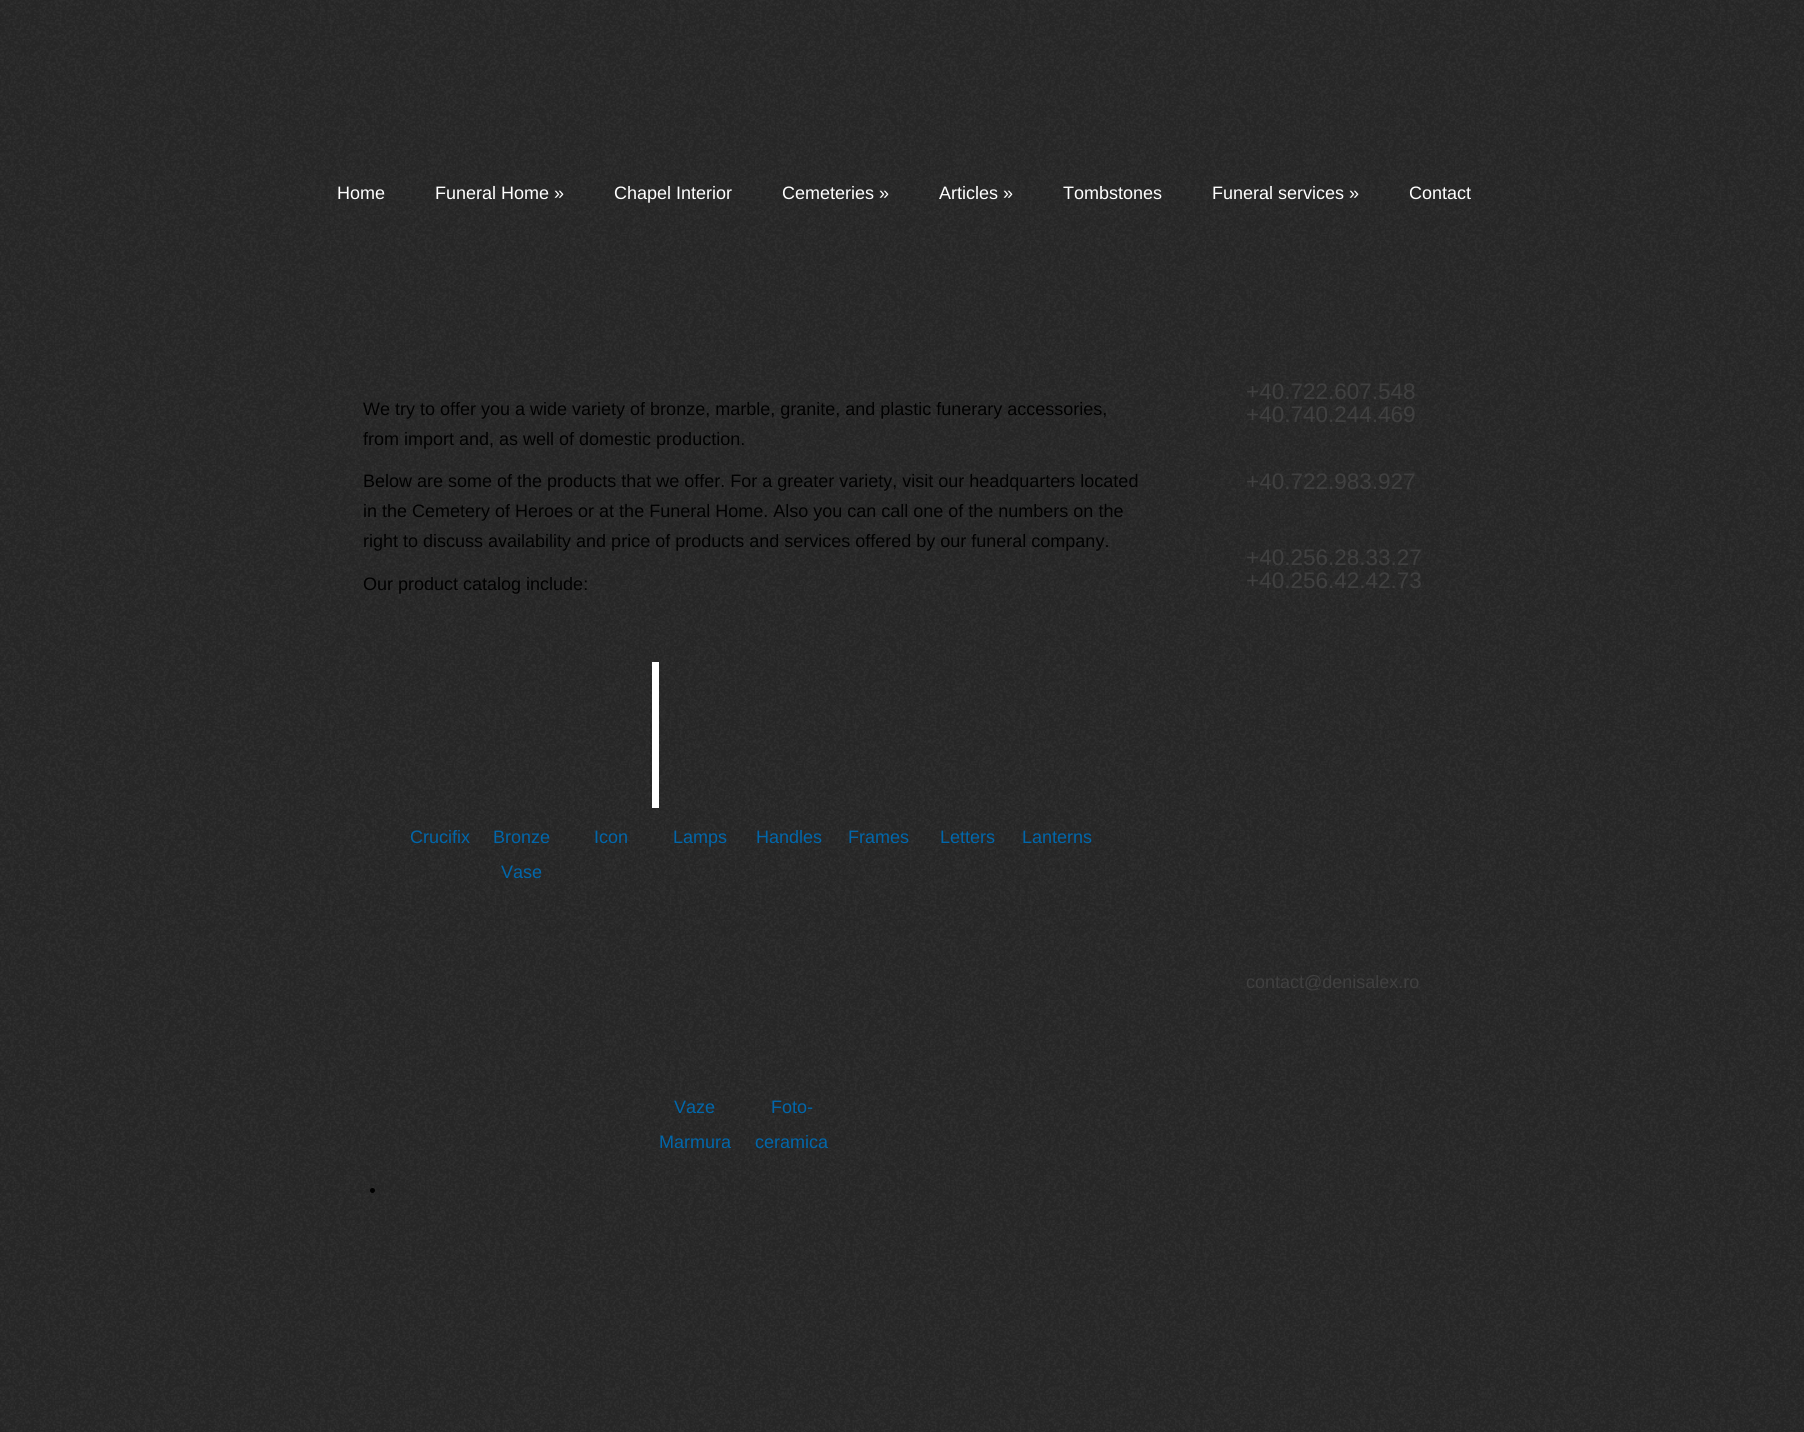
import math
import cairo



def draw_image(context, path, x, y, w, h):
    context.save()
    context.set_source_surface(cairo.ImageSurface.create_from_png(path), x, y)
    context.rectangle(x, y, w, h)
    context.fill()
    context.restore()


def draw(context):
    context.set_source_rgb(1, 1, 1)
    context.paint()
    draw_image(context, "images/1.png", 0, 0, 1804, 1432)
    context.set_source_rgb(1, 1, 1)
    context.rectangle(652, 662, 7, 146)
    context.fill()
    context.set_source_rgb(0, 0, 0)
    context.arc(372.5, 1190.5, 2.5, 0, 2 * math.pi)
    context.fill()
    context.select_font_face("Liberation Sans")
    context.set_font_size(18)
    context.set_source_rgb(1, 1, 1)
    context.move_to(337, 199)
    context.show_text("Home")
    context.move_to(435, 199)
    context.show_text("Funeral Home »")
    context.move_to(614, 199)
    context.show_text("Chapel Interior")
    context.move_to(782, 199)
    context.show_text("Cemeteries »")
    context.move_to(939, 199)
    context.show_text("Articles »")
    context.move_to(1063, 199)
    context.show_text("Tombstones")
    context.move_to(1212, 199)
    context.show_text("Funeral services »")
    context.move_to(1409, 199)
    context.show_text("Contact")
    context.set_source_rgb(0, 0, 0)
    context.move_to(363, 415)
    context.show_text("We try to offer you a wide variety of bronze, marble, granite, and plastic funerary accessories,")
    context.move_to(363, 445)
    context.show_text("from import and, as well of domestic production.")
    context.move_to(363, 487)
    context.show_text("Below are some of the products that we offer. For a greater variety, visit our headquarters located")
    context.move_to(363, 517)
    context.show_text("in the Cemetery of Heroes or at the Funeral Home. Also you can call one of the numbers on the")
    context.move_to(363, 547)
    context.show_text("right to discuss availability and price of products and services offered by our funeral company.")
    context.move_to(363, 590)
    context.show_text("Our product catalog include:")
    context.set_source_rgb(1 / 255, 103 / 255, 171 / 255)
    context.move_to(410, 843)
    context.show_text("Crucifix")
    context.move_to(493, 843)
    context.show_text("Bronze")
    context.move_to(501, 878)
    context.show_text("Vase")
    context.move_to(594, 843)
    context.show_text("Icon")
    context.move_to(673, 843)
    context.show_text("Lamps")
    context.move_to(756, 843)
    context.show_text("Handles")
    context.move_to(848, 843)
    context.show_text("Frames")
    context.move_to(940, 843)
    context.show_text("Letters")
    context.move_to(1022, 843)
    context.show_text("Lanterns")
    context.move_to(674, 1113)
    context.show_text("Vaze")
    context.move_to(659, 1148)
    context.show_text("Marmura")
    context.move_to(771, 1113)
    context.show_text("Foto-")
    context.move_to(755, 1148)
    context.show_text("ceramica")
    context.set_font_size(22.5)
    context.set_source_rgb(64 / 255, 64 / 255, 64 / 255)
    context.move_to(1246, 399)
    context.show_text("+40.722.607.548")
    context.move_to(1246, 422)
    context.show_text("+40.740.244.469")
    context.move_to(1246, 489)
    context.show_text("+40.722.983.927")
    context.move_to(1246, 565)
    context.show_text("+40.256.28.33.27")
    context.move_to(1246, 588)
    context.show_text("+40.256.42.42.73")
    context.set_font_size(18)
    context.move_to(1246, 988)
    context.show_text("contact@denisalex.ro")


surface = cairo.ImageSurface(cairo.Format.RGB24, 1804, 1432)
context = cairo.Context(surface)
options = cairo.FontOptions()
options.set_hint_metrics(cairo.HintMetrics.OFF)
options.set_hint_style(cairo.HintStyle.NONE)
context.set_font_options(options)
context.set_miter_limit(4)
draw(context)
surface.write_to_png("out.png")
